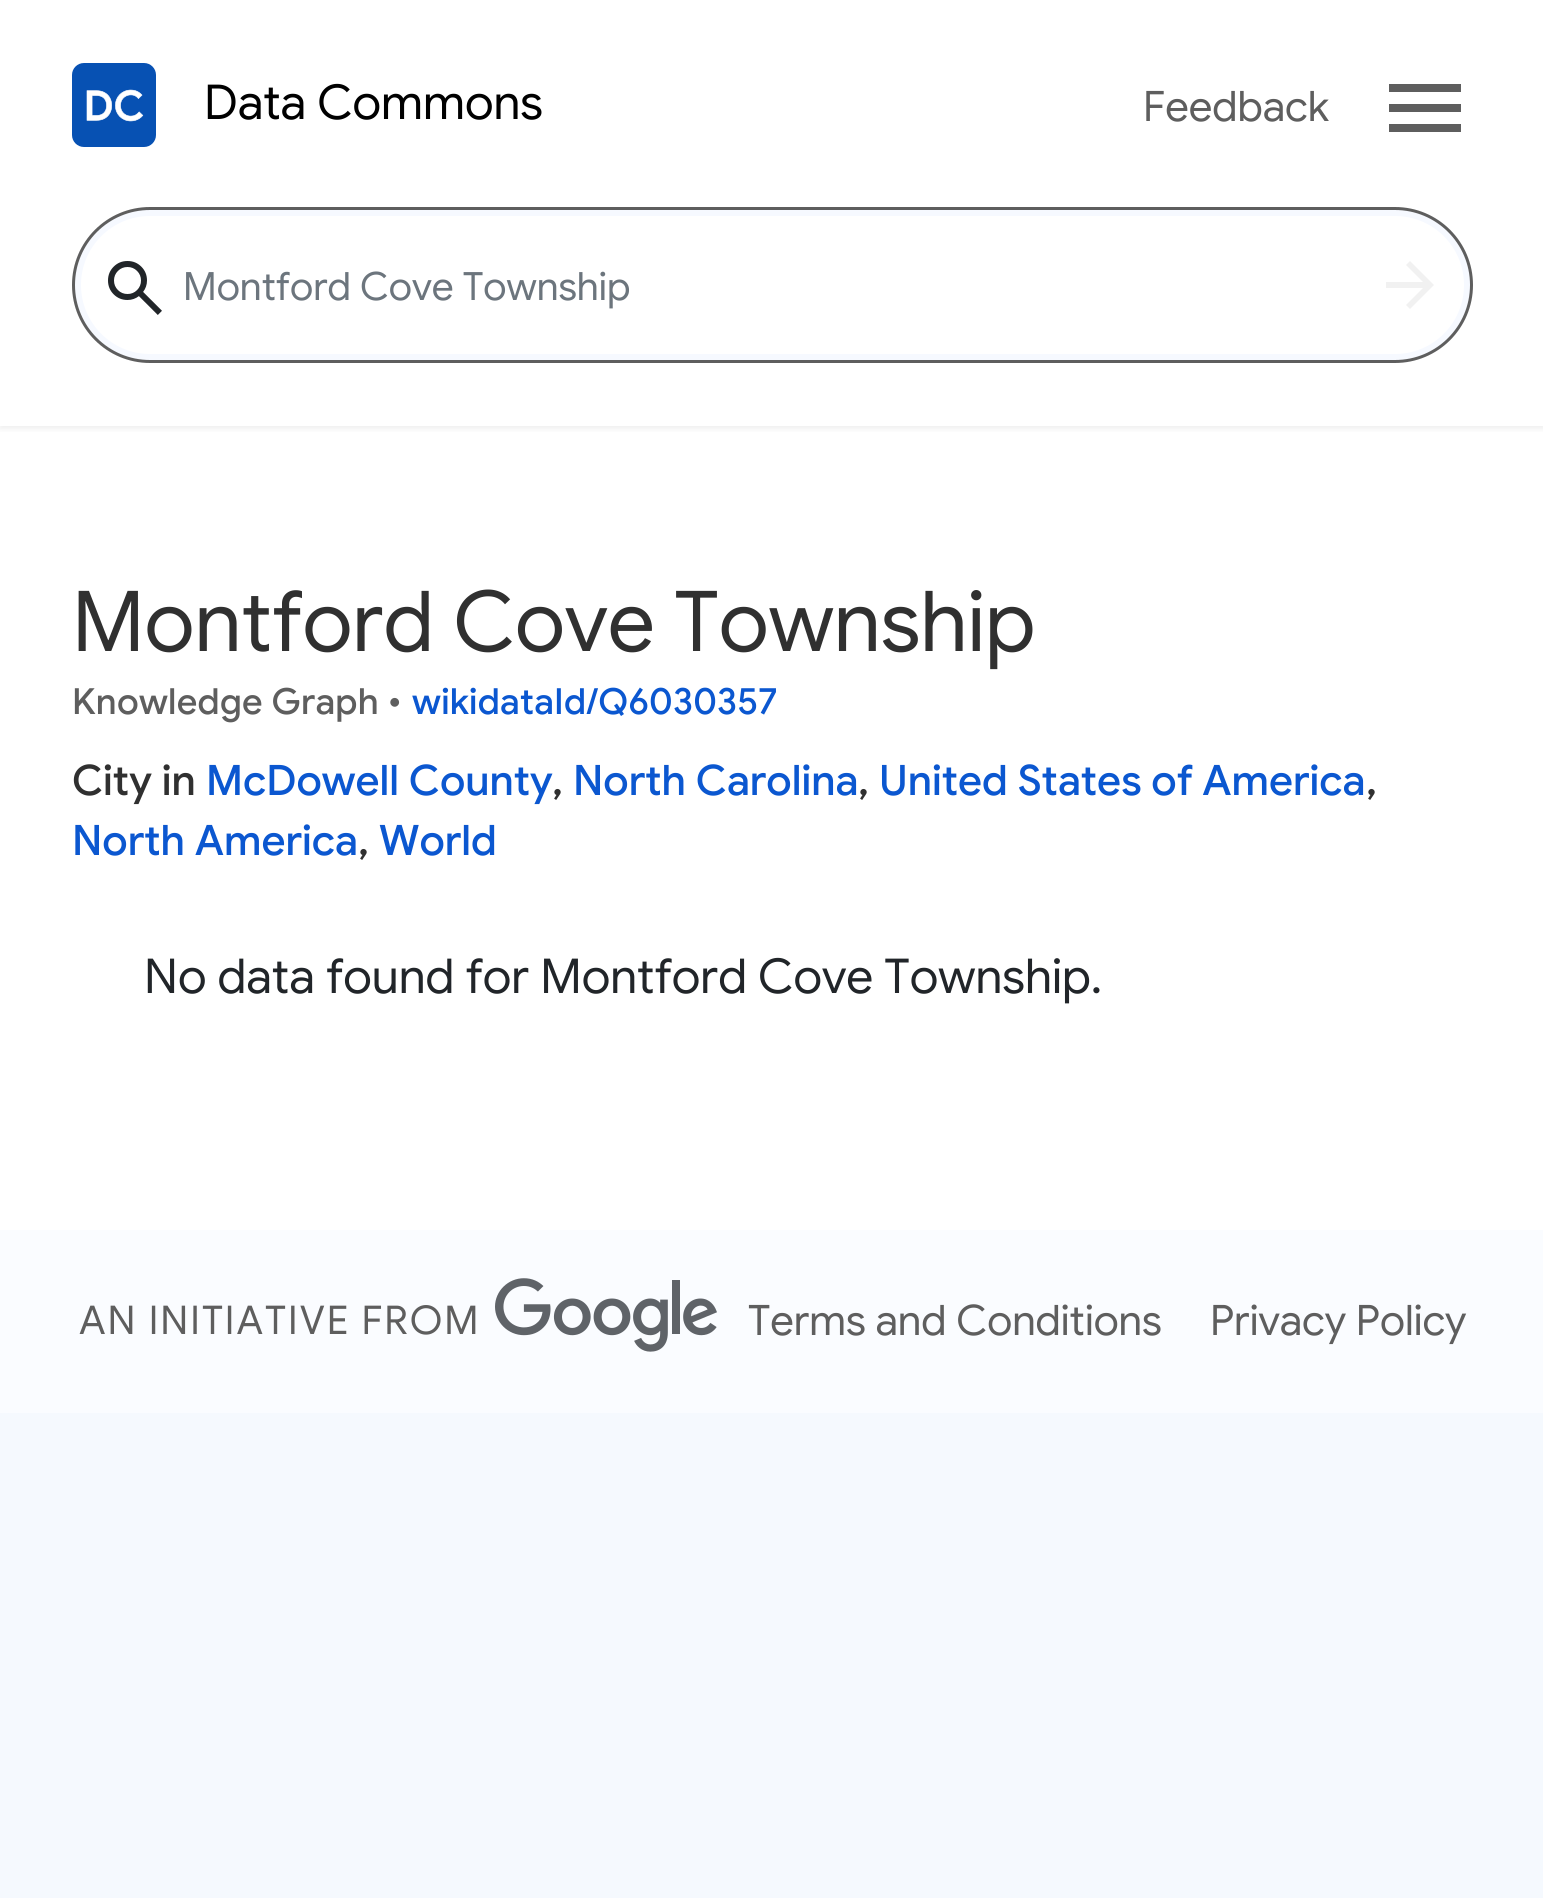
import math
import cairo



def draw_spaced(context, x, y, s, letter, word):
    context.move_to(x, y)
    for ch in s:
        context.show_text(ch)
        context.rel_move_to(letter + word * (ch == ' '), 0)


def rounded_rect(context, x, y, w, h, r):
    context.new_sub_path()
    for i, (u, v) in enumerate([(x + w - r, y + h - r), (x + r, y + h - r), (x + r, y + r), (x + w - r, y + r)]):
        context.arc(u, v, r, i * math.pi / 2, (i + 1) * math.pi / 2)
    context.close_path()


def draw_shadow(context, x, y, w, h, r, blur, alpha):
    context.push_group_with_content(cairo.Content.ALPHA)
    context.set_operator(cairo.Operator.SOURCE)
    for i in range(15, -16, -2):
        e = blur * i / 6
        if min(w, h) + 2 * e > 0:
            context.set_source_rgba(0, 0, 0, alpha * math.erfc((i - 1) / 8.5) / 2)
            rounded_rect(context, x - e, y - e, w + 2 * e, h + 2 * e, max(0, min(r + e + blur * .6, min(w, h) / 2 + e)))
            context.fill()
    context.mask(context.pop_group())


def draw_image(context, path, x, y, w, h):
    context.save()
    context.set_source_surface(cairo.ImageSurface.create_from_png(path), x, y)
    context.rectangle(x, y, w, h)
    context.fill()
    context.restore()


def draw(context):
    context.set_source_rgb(1, 1, 1)
    context.paint()
    context.save()
    context.rectangle(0, 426, 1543, 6)
    context.clip()
    context.set_source_rgb(94 / 255, 94 / 255, 94 / 255)
    draw_shadow(context, 0, 3, 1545, 426, 0, 3, 0.1)
    context.restore()
    draw_image(context, "images/1.png", 72, 63, 84, 84)
    context.set_source_rgb(94 / 255, 94 / 255, 94 / 255)
    context.new_path()
    context.move_to(1389, 132)
    context.line_to(1389, 124)
    context.line_to(1461, 124)
    context.line_to(1461, 132)
    context.close_path()
    context.move_to(1389, 112)
    context.line_to(1389, 104)
    context.line_to(1461, 104)
    context.line_to(1461, 112)
    context.close_path()
    context.move_to(1389, 92)
    context.line_to(1389, 84)
    context.line_to(1461, 84)
    context.line_to(1461, 92)
    context.close_path()
    context.fill()
    context.set_source_rgb(246 / 255, 249 / 255, 1)
    rounded_rect(context, 73.5, 208.5, 1398, 153, 76.5)
    context.fill_preserve()
    context.set_source_rgb(94 / 255, 94 / 255, 94 / 255)
    context.set_line_width(3)
    context.stroke()
    context.set_source_rgb(1, 1, 1)
    rounded_rect(context, 81, 216, 1383, 138, 69)
    context.fill()
    draw_image(context, "images/2.png", 108, 261, 54, 54)
    context.set_source_rgb(241 / 255, 241 / 255, 241 / 255)
    context.new_path()
    context.move_to(1423, 288)
    context.line_to(1386, 288)
    context.line_to(1386, 282)
    context.line_to(1423, 282)
    context.line_to(1406, 265)
    context.line_to(1410, 261)
    context.line_to(1434, 285)
    context.line_to(1410, 309)
    context.line_to(1406, 305)
    context.close_path()
    context.fill()
    context.set_source_rgb(245 / 255, 249 / 255, 254 / 255)
    context.new_path()
    context.move_to(-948, 1230)
    context.line_to(-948, 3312)
    context.line_to(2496, 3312)
    context.line_to(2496, 1230)
    context.line_to(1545, 1230)
    context.line_to(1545, 1413)
    context.line_to(0, 1413)
    context.line_to(0, 1230)
    context.close_path()
    context.fill()
    context.set_source_rgb(250 / 255, 252 / 255, 1)
    context.rectangle(0, 1230, 1543, 183)
    context.fill()
    draw_image(context, "images/3.png", 495, 1278, 222, 74)
    context.select_font_face("Google Sans")
    context.set_font_size(48)
    context.set_source_rgb(0, 0, 0)
    context.move_to(204, 119)
    context.show_text("Data Commons")
    context.set_font_size(42)
    context.set_source_rgb(94 / 255, 94 / 255, 94 / 255)
    context.move_to(1143, 121)
    context.show_text("Feedback")
    context.set_font_size(39)
    context.set_source_rgb(108 / 255, 117 / 255, 125 / 255)
    context.move_to(183, 300)
    context.show_text("Montford Cove Township")
    context.set_font_size(84)
    context.set_source_rgb(48 / 255, 48 / 255, 48 / 255)
    context.move_to(72, 651)
    context.show_text("Montford Cove Township")
    context.select_font_face("Google Sans Medium")
    context.set_font_size(36)
    context.set_source_rgb(94 / 255, 94 / 255, 94 / 255)
    draw_spaced(context, 72, 714, "Knowledge Graph •", 0.25, 0)
    context.set_source_rgb(11 / 255, 87 / 255, 208 / 255)
    draw_spaced(context, 412, 714, "wikidataId/Q6030357", 0.25, 0)
    context.set_font_size(42)
    context.set_source_rgb(48 / 255, 48 / 255, 48 / 255)
    context.move_to(72, 795)
    context.show_text("City in")
    context.set_source_rgb(11 / 255, 87 / 255, 208 / 255)
    context.move_to(206, 795)
    context.show_text("McDowell County")
    context.set_source_rgb(48 / 255, 48 / 255, 48 / 255)
    context.move_to(552, 795)
    context.show_text(",")
    context.set_source_rgb(11 / 255, 87 / 255, 208 / 255)
    context.move_to(573, 795)
    context.show_text("North Carolina")
    context.set_source_rgb(48 / 255, 48 / 255, 48 / 255)
    context.move_to(858, 795)
    context.show_text(",")
    context.set_source_rgb(11 / 255, 87 / 255, 208 / 255)
    context.move_to(879, 795)
    context.show_text("United States of America")
    context.set_source_rgb(48 / 255, 48 / 255, 48 / 255)
    context.move_to(1366, 795)
    context.show_text(",")
    context.set_source_rgb(11 / 255, 87 / 255, 208 / 255)
    context.move_to(72, 855)
    context.show_text("North America")
    context.set_source_rgb(48 / 255, 48 / 255, 48 / 255)
    context.move_to(358, 855)
    context.show_text(",")
    context.set_source_rgb(11 / 255, 87 / 255, 208 / 255)
    context.move_to(379, 855)
    context.show_text("World")
    context.select_font_face("Google Sans")
    context.set_font_size(48)
    context.set_source_rgb(33 / 255, 37 / 255, 41 / 255)
    context.move_to(144, 993)
    context.show_text("No data found for Montford Cove Township.")
    context.set_font_size(39.6)
    context.set_source_rgb(94 / 255, 94 / 255, 94 / 255)
    draw_spaced(context, 79, 1334, "AN INITIATIVE FROM", 2, 0)
    context.set_font_size(42)
    context.move_to(748, 1335)
    context.show_text("Terms and Conditions")
    context.move_to(1210, 1335)
    context.show_text("Privacy Policy")


surface = cairo.ImageSurface(cairo.Format.RGB24, 1543, 1898)
context = cairo.Context(surface)
options = cairo.FontOptions()
options.set_hint_metrics(cairo.HintMetrics.OFF)
options.set_hint_style(cairo.HintStyle.NONE)
context.set_font_options(options)
context.set_miter_limit(4)
draw(context)
surface.write_to_png("out.png")
